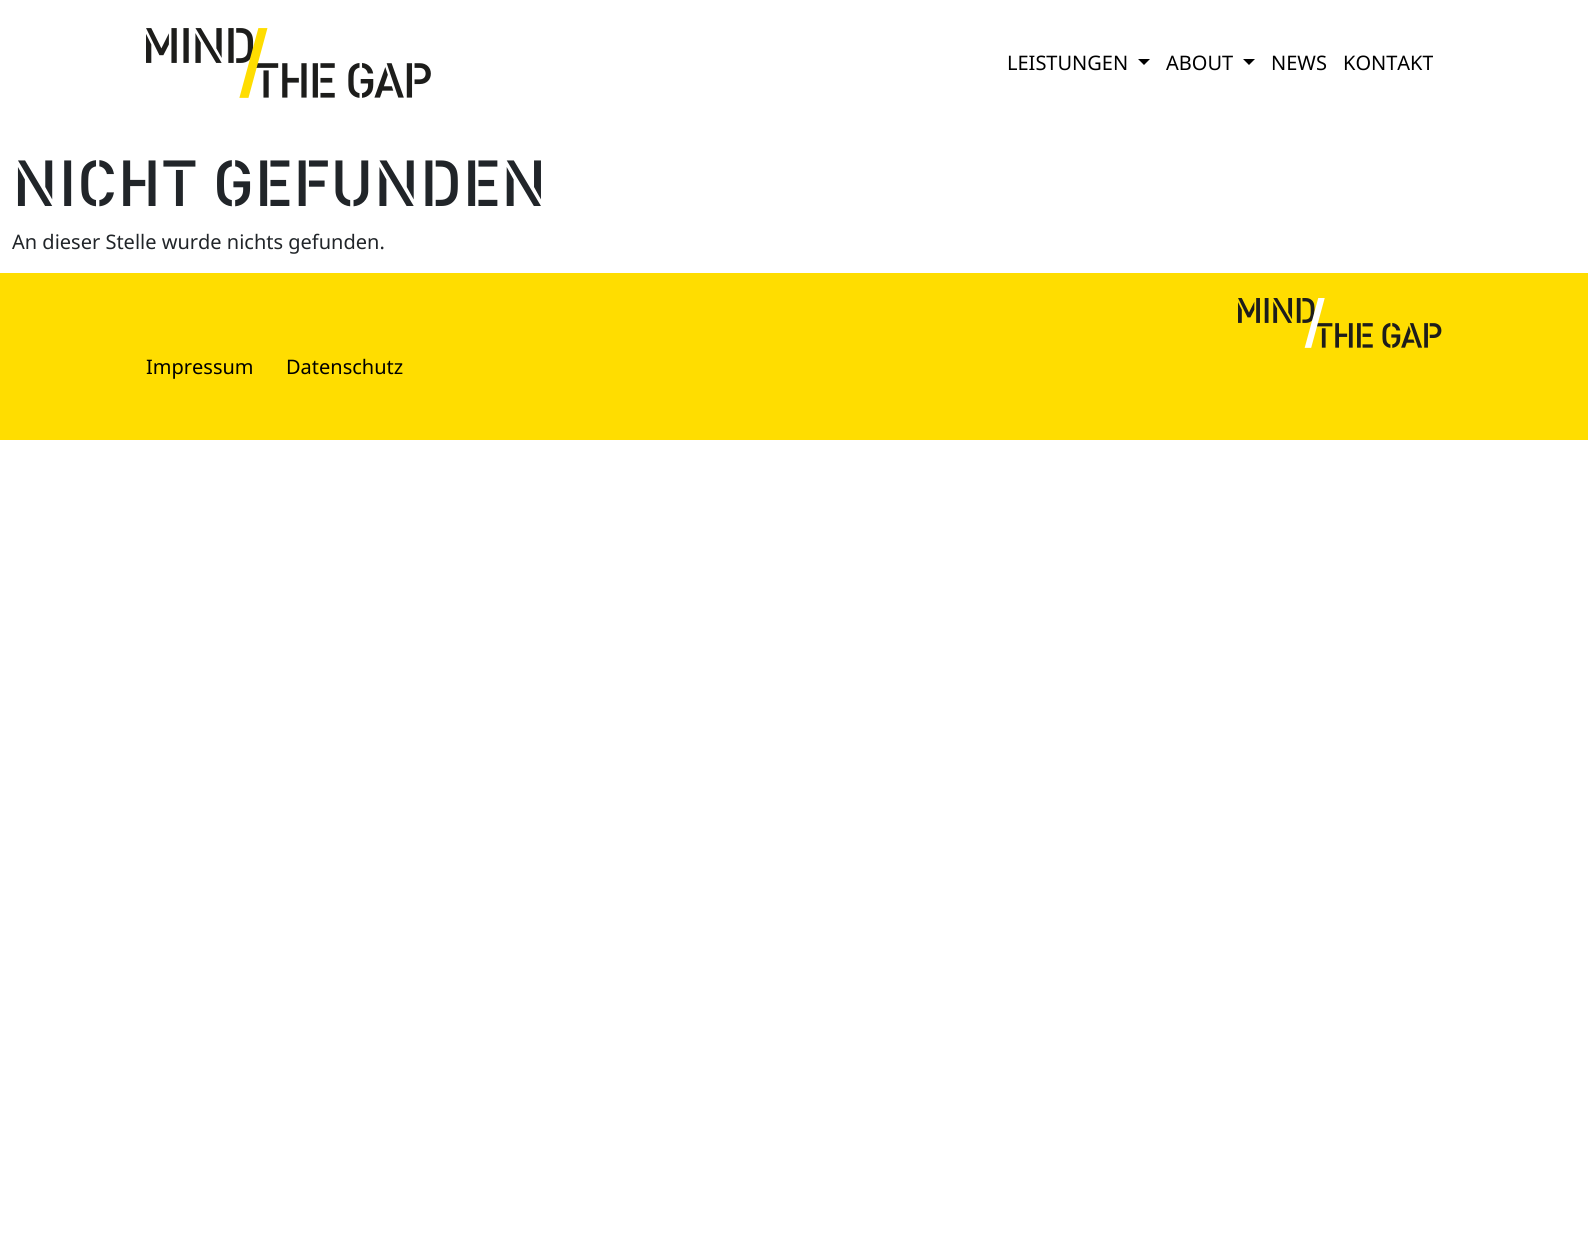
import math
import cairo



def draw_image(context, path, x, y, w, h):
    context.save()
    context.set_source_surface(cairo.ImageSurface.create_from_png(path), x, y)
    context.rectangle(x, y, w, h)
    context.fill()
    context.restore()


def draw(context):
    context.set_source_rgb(1, 1, 1)
    context.paint()
    draw_image(context, "images/1.png", 146, 28, 285, 70)
    context.set_source_rgb(0, 0, 0)
    context.new_path()
    context.move_to(1138, 59)
    context.line_to(1150, 59)
    context.line_to(1144, 65)
    context.close_path()
    context.fill()
    context.new_path()
    context.move_to(1243, 59)
    context.line_to(1255, 59)
    context.line_to(1249, 65)
    context.close_path()
    context.fill()
    context.set_source_rgb(1, 221 / 255, 0)
    context.rectangle(0, 273, 1588, 167)
    context.fill()
    draw_image(context, "images/2.png", 1238, 298, 204, 50)
    context.select_font_face("Noto Sans")
    context.set_font_size(20)
    context.set_source_rgb(0, 0, 0)
    context.move_to(1007, 70)
    context.show_text("LEISTUNGEN")
    context.move_to(1166, 70)
    context.show_text("ABOUT")
    context.move_to(1271, 70)
    context.show_text("NEWS")
    context.move_to(1343, 70)
    context.show_text("KONTAKT")
    context.select_font_face("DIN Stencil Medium")
    context.set_font_size(64)
    context.set_source_rgb(33 / 255, 37 / 255, 41 / 255)
    context.move_to(12, 206)
    context.show_text("NICHT GEFUNDEN")
    context.select_font_face("Noto Sans")
    context.set_font_size(20)
    context.move_to(12, 249)
    context.show_text("An dieser Stelle wurde nichts gefunden.")
    context.set_source_rgb(0, 0, 0)
    context.move_to(146, 374)
    context.show_text("Impressum")
    context.move_to(286, 374)
    context.show_text("Datenschutz")


surface = cairo.ImageSurface(cairo.Format.RGB24, 1588, 1260)
context = cairo.Context(surface)
options = cairo.FontOptions()
options.set_hint_metrics(cairo.HintMetrics.OFF)
options.set_hint_style(cairo.HintStyle.NONE)
context.set_font_options(options)
context.set_miter_limit(4)
draw(context)
surface.write_to_png("out.png")
